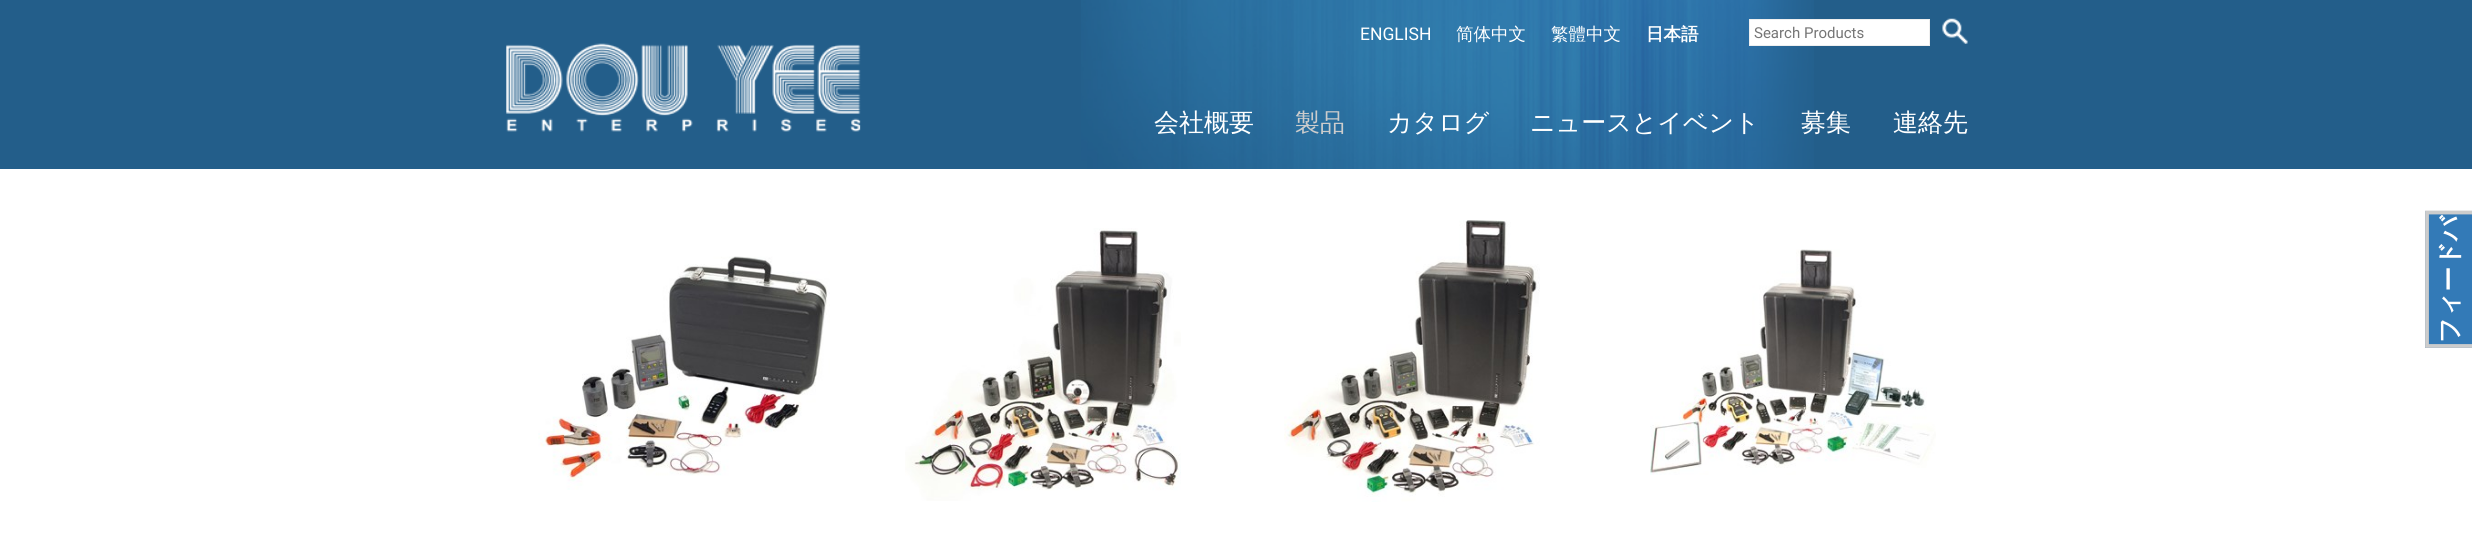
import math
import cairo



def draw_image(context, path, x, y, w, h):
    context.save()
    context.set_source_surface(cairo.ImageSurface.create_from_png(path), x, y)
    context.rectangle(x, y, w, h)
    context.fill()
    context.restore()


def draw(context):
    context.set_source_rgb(1, 1, 1)
    context.paint()
    context.set_source_rgb(35 / 255, 94 / 255, 138 / 255)
    context.rectangle(0, 0, 2472, 169)
    context.fill()
    draw_image(context, "images/2.png", 1081, 0, 733, 169)
    context.set_source_rgb(1, 1, 1)
    context.rectangle(1749.5, 19.5, 180, 26)
    context.fill_preserve()
    context.set_source_rgb(239 / 255, 239 / 255, 239 / 255)
    context.set_line_width(1)
    context.stroke()
    draw_image(context, "images/1.png", 1942, 18, 26, 26)
    draw_image(context, "images/3.png", 506, 43, 355, 89)
    draw_image(context, "images/4.png", 538, 256, 292, 234)
    draw_image(context, "images/5.png", 905, 228, 276, 273)
    draw_image(context, "images/6.png", 1284, 220, 256, 282)
    draw_image(context, "images/7.png", 1650, 249, 286, 226)
    context.set_source_rgb(51 / 255, 122 / 255, 183 / 255)
    context.rectangle(2425, 211, 47, 137)
    context.fill()
    context.new_path()
    context.move_to(2427, 346)
    context.line_to(2427, 212.5)
    context.line_to(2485.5, 212.5)
    context.line_to(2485.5, 346)
    context.close_path()
    context.set_source_rgb(204 / 255, 204 / 255, 204 / 255)
    context.set_line_width(3.8)
    context.stroke()
    context.select_font_face("Roboto")
    context.set_font_size(17.5)
    context.set_source_rgb(1, 1, 1)
    context.move_to(1360, 40)
    context.show_text("ENGLISH")
    context.select_font_face("WenQuanYi Zen Hei Medium")
    context.move_to(1456, 40)
    context.show_text("简体中文")
    context.move_to(1551, 40)
    context.show_text("繁體中文")
    context.select_font_face("WenQuanYi Zen Hei", cairo.FontSlant.NORMAL, cairo.FontWeight.BOLD)
    context.move_to(1646, 40)
    context.show_text("日本語")
    context.select_font_face("Roboto")
    context.set_font_size(15)
    context.set_source_rgb(117 / 255, 117 / 255, 117 / 255)
    context.move_to(1754, 38)
    context.show_text("Search Products")
    context.select_font_face("WenQuanYi Zen Hei Medium")
    context.set_font_size(25)
    context.set_source_rgb(1, 1, 1)
    context.move_to(1154, 131)
    context.show_text("会社概要")
    context.set_source_rgb(204 / 255, 204 / 255, 204 / 255)
    context.move_to(1295, 131)
    context.show_text("製品")
    context.set_source_rgb(1, 1, 1)
    context.move_to(1387, 131)
    context.show_text("カタログ")
    context.move_to(1530, 131)
    context.show_text("ニュースとイベント")
    context.move_to(1801, 131)
    context.show_text("募集")
    context.move_to(1893, 131)
    context.show_text("連絡先")
    context.select_font_face("WenQuanYi Zen Hei", cairo.FontSlant.NORMAL, cairo.FontWeight.BOLD)
    context.save()
    context.translate(2458, 343)
    context.rotate(-90 * math.pi / 180)
    context.move_to(0, 0)
    context.show_text("フィードバ")
    context.restore()


surface = cairo.ImageSurface(cairo.Format.RGB24, 2472, 551)
context = cairo.Context(surface)
options = cairo.FontOptions()
options.set_hint_metrics(cairo.HintMetrics.OFF)
options.set_hint_style(cairo.HintStyle.NONE)
context.set_font_options(options)
context.set_miter_limit(4)
draw(context)
surface.write_to_png("out.png")
